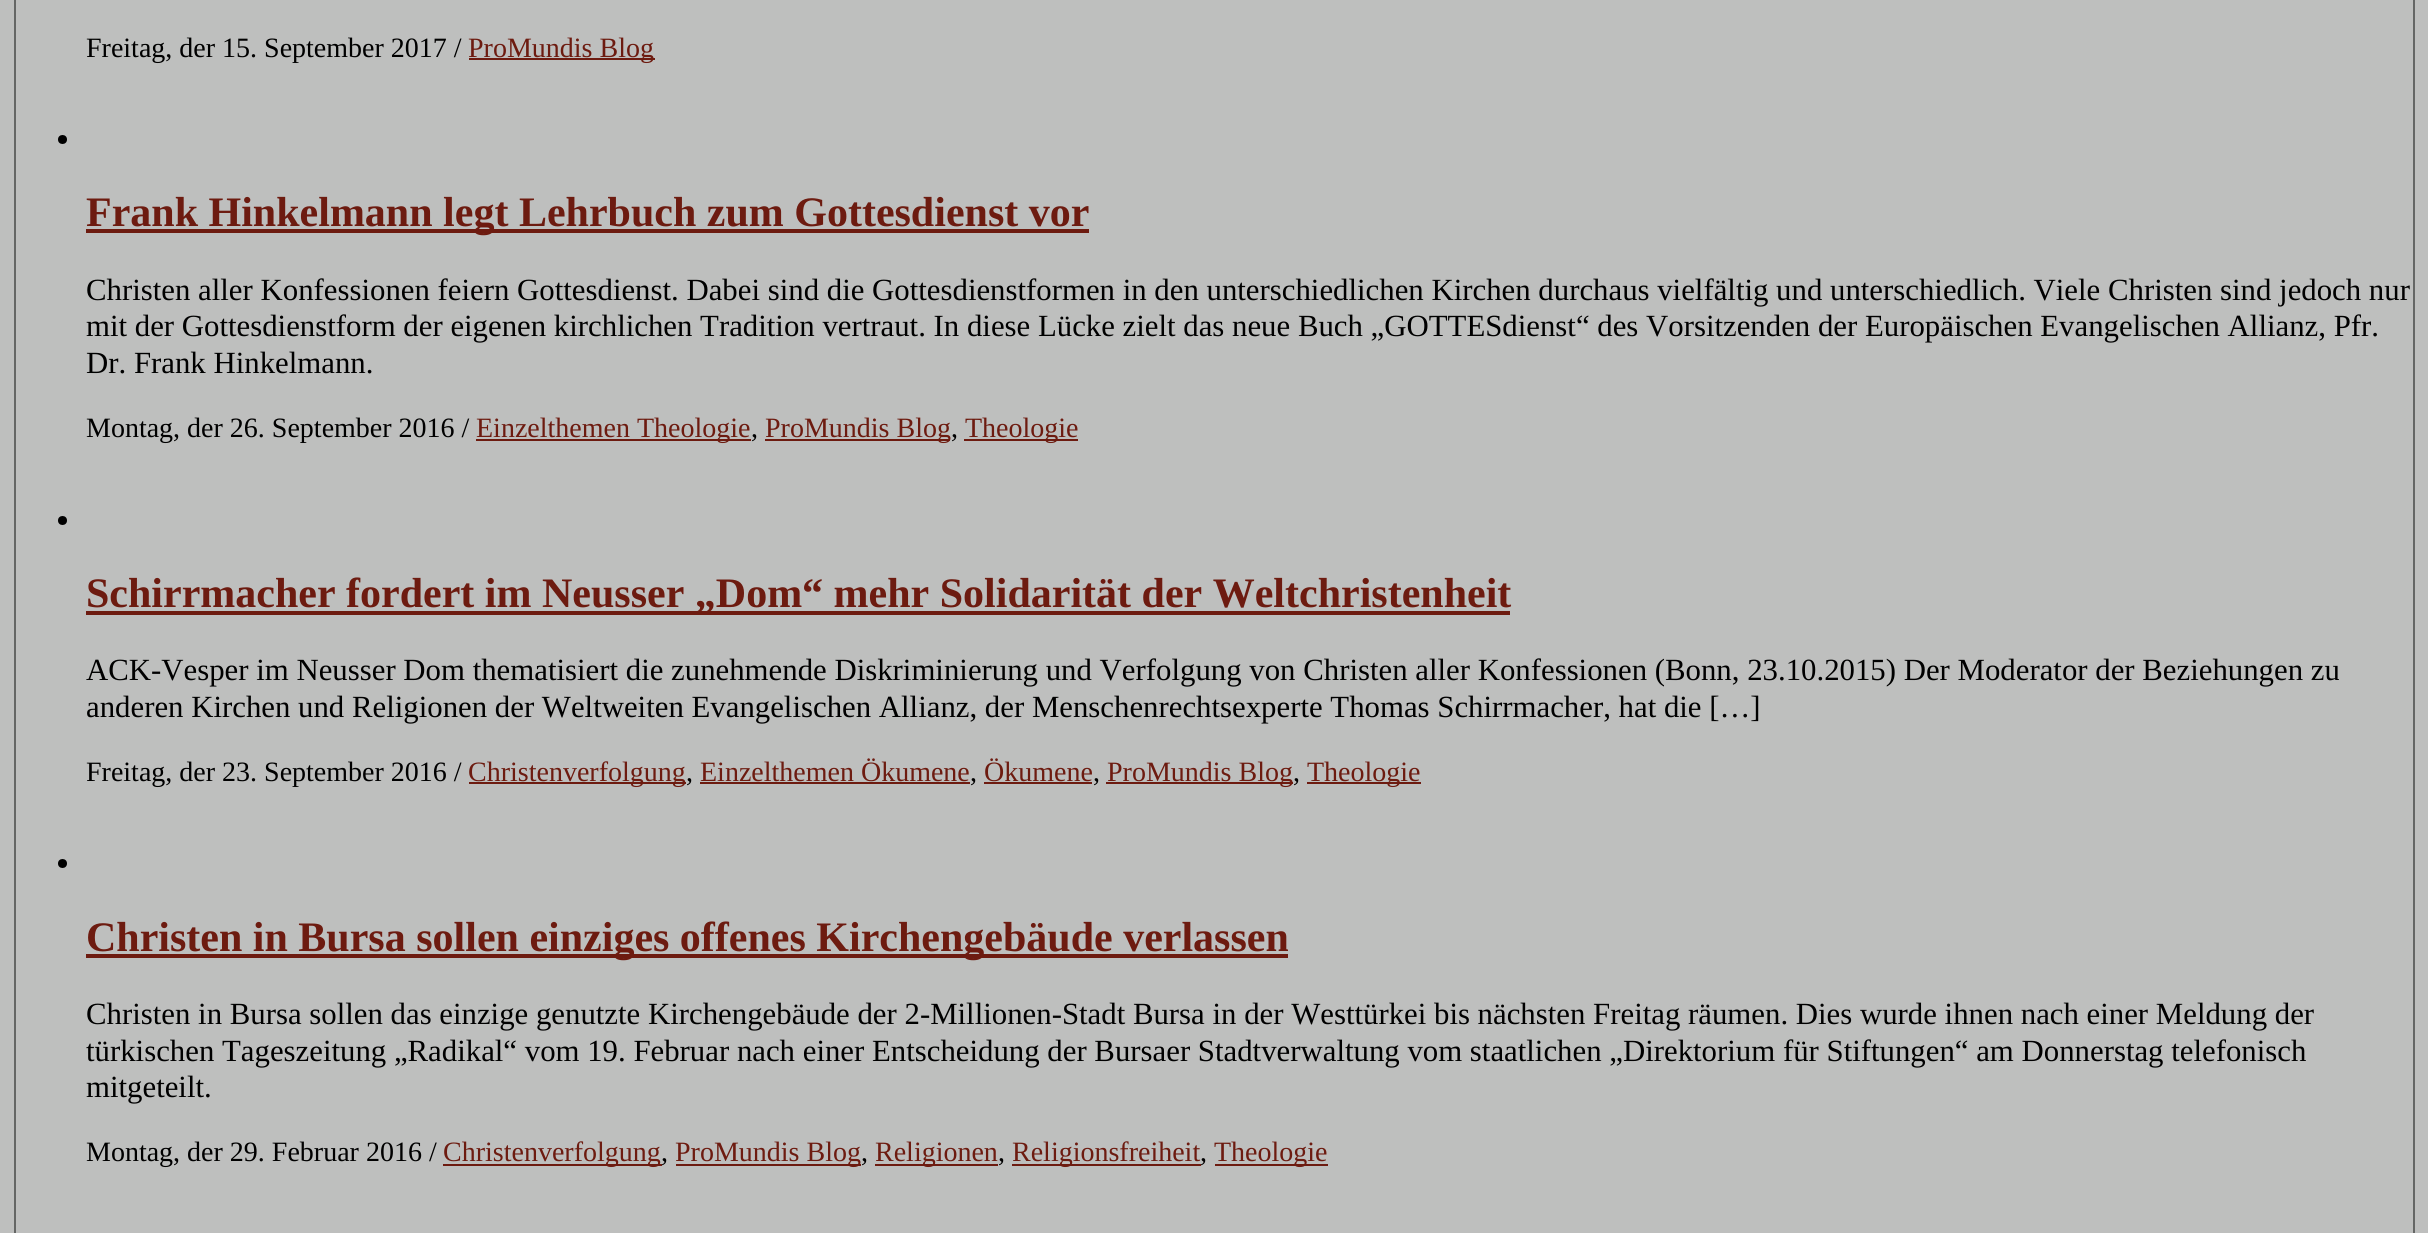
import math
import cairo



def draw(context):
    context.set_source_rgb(190 / 255, 191 / 255, 190 / 255)
    context.paint()
    context.set_source_rgb(101 / 255, 102 / 255, 101 / 255)
    context.rectangle(2413, 0, 2, 1233)
    context.fill()
    context.rectangle(14, 0, 2, 1233)
    context.fill()
    context.set_source_rgb(109 / 255, 27 / 255, 16 / 255)
    context.rectangle(469, 58, 186, 2)
    context.fill()
    context.set_source_rgb(0, 0, 0)
    context.arc(62.5, 139.5, 4.5, 0, 2 * math.pi)
    context.fill()
    context.set_source_rgb(109 / 255, 27 / 255, 16 / 255)
    context.rectangle(86, 229, 1003, 4)
    context.fill()
    context.rectangle(476, 439, 275, 2)
    context.fill()
    context.rectangle(765, 439, 185, 2)
    context.fill()
    context.rectangle(964, 439, 114, 2)
    context.fill()
    context.set_source_rgb(0, 0, 0)
    context.arc(62.5, 520.5, 4.5, 0, 2 * math.pi)
    context.fill()
    context.set_source_rgb(109 / 255, 27 / 255, 16 / 255)
    context.rectangle(86, 611, 1424, 4)
    context.fill()
    context.rectangle(469, 782, 217, 2)
    context.fill()
    context.rectangle(700, 782, 270, 2)
    context.fill()
    context.rectangle(984, 782, 108, 2)
    context.fill()
    context.rectangle(1106, 782, 187, 2)
    context.fill()
    context.rectangle(1307, 782, 114, 2)
    context.fill()
    context.set_source_rgb(0, 0, 0)
    context.arc(62.5, 863.5, 4.5, 0, 2 * math.pi)
    context.fill()
    context.set_source_rgb(109 / 255, 27 / 255, 16 / 255)
    context.rectangle(86, 954, 1202, 4)
    context.fill()
    context.rectangle(443, 1164, 219, 2)
    context.fill()
    context.rectangle(676, 1164, 185, 2)
    context.fill()
    context.rectangle(875, 1164, 123, 2)
    context.fill()
    context.rectangle(1012, 1164, 189, 2)
    context.fill()
    context.rectangle(1215, 1164, 113, 2)
    context.fill()
    context.select_font_face("Liberation Serif")
    context.set_font_size(28)
    context.set_source_rgb(0, 0, 0)
    context.move_to(86, 57)
    context.show_text("Freitag, der 15. September 2017 /")
    context.set_source_rgb(109 / 255, 27 / 255, 16 / 255)
    context.move_to(468, 57)
    context.show_text("ProMundis Blog")
    context.select_font_face("Liberation Serif", cairo.FontSlant.NORMAL, cairo.FontWeight.BOLD)
    context.set_font_size(42)
    context.move_to(86, 226)
    context.show_text("Frank Hinkelmann legt Lehrbuch zum Gottesdienst vor")
    context.select_font_face("Liberation Serif")
    context.set_font_size(30.8)
    context.set_source_rgb(0, 0, 0)
    context.move_to(86, 300)
    context.show_text("Christen aller Konfessionen feiern Gottesdienst. Dabei sind die Gottesdienstformen in den unterschiedlichen Kirchen durchaus vielfältig und unterschiedlich. Viele Christen sind jedoch nur")
    context.move_to(86, 336)
    context.show_text("mit der Gottesdienstform der eigenen kirchlichen Tradition vertraut. In diese Lücke zielt das neue Buch „GOTTESdienst“ des Vorsitzenden der Europäischen Evangelischen Allianz, Pfr.")
    context.move_to(86, 373)
    context.show_text("Dr. Frank Hinkelmann.")
    context.set_font_size(28)
    context.move_to(86, 437)
    context.show_text("Montag, der 26. September 2016 /")
    context.set_source_rgb(109 / 255, 27 / 255, 16 / 255)
    context.move_to(476, 437)
    context.show_text("Einzelthemen Theologie")
    context.set_source_rgb(0, 0, 0)
    context.move_to(751, 437)
    context.show_text(",")
    context.set_source_rgb(109 / 255, 27 / 255, 16 / 255)
    context.move_to(765, 437)
    context.show_text("ProMundis Blog")
    context.set_source_rgb(0, 0, 0)
    context.move_to(951, 437)
    context.show_text(",")
    context.set_source_rgb(109 / 255, 27 / 255, 16 / 255)
    context.move_to(965, 437)
    context.show_text("Theologie")
    context.select_font_face("Liberation Serif", cairo.FontSlant.NORMAL, cairo.FontWeight.BOLD)
    context.set_font_size(42)
    context.move_to(86, 607)
    context.show_text("Schirrmacher fordert im Neusser „Dom“ mehr Solidarität der Weltchristenheit")
    context.select_font_face("Liberation Serif")
    context.set_font_size(30.8)
    context.set_source_rgb(0, 0, 0)
    context.move_to(86, 680)
    context.show_text("ACK-Vesper im Neusser Dom thematisiert die zunehmende Diskriminierung und Verfolgung von Christen aller Konfessionen (Bonn, 23.10.2015) Der Moderator der Beziehungen zu")
    context.move_to(86, 717)
    context.show_text("anderen Kirchen und Religionen der Weltweiten Evangelischen Allianz, der Menschenrechtsexperte Thomas Schirrmacher, hat die […]")
    context.set_font_size(28)
    context.move_to(86, 781)
    context.show_text("Freitag, der 23. September 2016 /")
    context.set_source_rgb(109 / 255, 27 / 255, 16 / 255)
    context.move_to(468, 781)
    context.show_text("Christenverfolgung")
    context.set_source_rgb(0, 0, 0)
    context.move_to(686, 781)
    context.show_text(",")
    context.set_source_rgb(109 / 255, 27 / 255, 16 / 255)
    context.move_to(700, 781)
    context.show_text("Einzelthemen Ökumene")
    context.set_source_rgb(0, 0, 0)
    context.move_to(970, 781)
    context.show_text(",")
    context.set_source_rgb(109 / 255, 27 / 255, 16 / 255)
    context.move_to(984, 781)
    context.show_text("Ökumene")
    context.set_source_rgb(0, 0, 0)
    context.move_to(1093, 781)
    context.show_text(",")
    context.set_source_rgb(109 / 255, 27 / 255, 16 / 255)
    context.move_to(1107, 781)
    context.show_text("ProMundis Blog")
    context.set_source_rgb(0, 0, 0)
    context.move_to(1293, 781)
    context.show_text(",")
    context.set_source_rgb(109 / 255, 27 / 255, 16 / 255)
    context.move_to(1307, 781)
    context.show_text("Theologie")
    context.select_font_face("Liberation Serif", cairo.FontSlant.NORMAL, cairo.FontWeight.BOLD)
    context.set_font_size(42)
    context.move_to(86, 951)
    context.show_text("Christen in Bursa sollen einziges offenes Kirchengebäude verlassen")
    context.select_font_face("Liberation Serif")
    context.set_font_size(30.8)
    context.set_source_rgb(0, 0, 0)
    context.move_to(86, 1024)
    context.show_text("Christen in Bursa sollen das einzige genutzte Kirchengebäude der 2-Millionen-Stadt Bursa in der Westtürkei bis nächsten Freitag räumen. Dies wurde ihnen nach einer Meldung der")
    context.move_to(86, 1061)
    context.show_text("türkischen Tageszeitung „Radikal“ vom 19. Februar nach einer Entscheidung der Bursaer Stadtverwaltung vom staatlichen „Direktorium für Stiftungen“ am Donnerstag telefonisch")
    context.move_to(86, 1097)
    context.show_text("mitgeteilt.")
    context.set_font_size(28)
    context.move_to(86, 1161)
    context.show_text("Montag, der 29. Februar 2016 /")
    context.set_source_rgb(109 / 255, 27 / 255, 16 / 255)
    context.move_to(443, 1161)
    context.show_text("Christenverfolgung")
    context.set_source_rgb(0, 0, 0)
    context.move_to(661, 1161)
    context.show_text(",")
    context.set_source_rgb(109 / 255, 27 / 255, 16 / 255)
    context.move_to(675, 1161)
    context.show_text("ProMundis Blog")
    context.set_source_rgb(0, 0, 0)
    context.move_to(861, 1161)
    context.show_text(",")
    context.set_source_rgb(109 / 255, 27 / 255, 16 / 255)
    context.move_to(875, 1161)
    context.show_text("Religionen")
    context.set_source_rgb(0, 0, 0)
    context.move_to(998, 1161)
    context.show_text(",")
    context.set_source_rgb(109 / 255, 27 / 255, 16 / 255)
    context.move_to(1012, 1161)
    context.show_text("Religionsfreiheit")
    context.set_source_rgb(0, 0, 0)
    context.move_to(1200, 1161)
    context.show_text(",")
    context.set_source_rgb(109 / 255, 27 / 255, 16 / 255)
    context.move_to(1214, 1161)
    context.show_text("Theologie")


surface = cairo.ImageSurface(cairo.Format.RGB24, 2428, 1233)
context = cairo.Context(surface)
options = cairo.FontOptions()
options.set_hint_metrics(cairo.HintMetrics.OFF)
options.set_hint_style(cairo.HintStyle.NONE)
context.set_font_options(options)
context.set_miter_limit(4)
draw(context)
surface.write_to_png("out.png")
